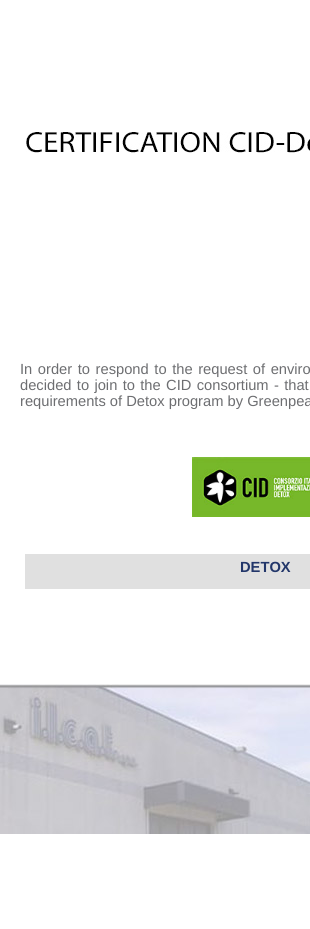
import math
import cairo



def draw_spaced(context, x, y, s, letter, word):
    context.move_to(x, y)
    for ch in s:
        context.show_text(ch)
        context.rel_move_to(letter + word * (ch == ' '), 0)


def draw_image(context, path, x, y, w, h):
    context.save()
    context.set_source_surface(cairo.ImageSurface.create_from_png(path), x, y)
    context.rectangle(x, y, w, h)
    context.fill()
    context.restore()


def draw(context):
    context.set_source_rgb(1, 1, 1)
    context.paint()
    draw_image(context, "images/1.png", 26, 132, 284, 21)
    draw_image(context, "images/2.png", 192, 457, 118, 60)
    context.set_source_rgb(224 / 255, 224 / 255, 224 / 255)
    context.rectangle(25, 554, 285, 35)
    context.fill()
    draw_image(context, "images/3.png", 0, 684, 310, 150)
    context.select_font_face("Liberation Sans")
    context.set_font_size(14.7)
    context.set_source_rgb(109 / 255, 110 / 255, 113 / 255)
    draw_spaced(context, 20, 374, "In order to respond to the request of enviro", 0, 1.5)
    draw_spaced(context, 20, 390, "decided to join to the CID consortium - that", 0, 1.25)
    context.move_to(20, 406)
    context.show_text("requirements of Detox program by Greenpea")
    context.select_font_face("Liberation Sans", cairo.FontSlant.NORMAL, cairo.FontWeight.BOLD)
    context.set_source_rgb(34 / 255, 54 / 255, 106 / 255)
    context.move_to(240, 572)
    context.show_text("DETOX")


surface = cairo.ImageSurface(cairo.Format.RGB24, 310, 929)
context = cairo.Context(surface)
options = cairo.FontOptions()
options.set_hint_metrics(cairo.HintMetrics.OFF)
options.set_hint_style(cairo.HintStyle.NONE)
context.set_font_options(options)
context.set_miter_limit(4)
draw(context)
surface.write_to_png("out.png")
